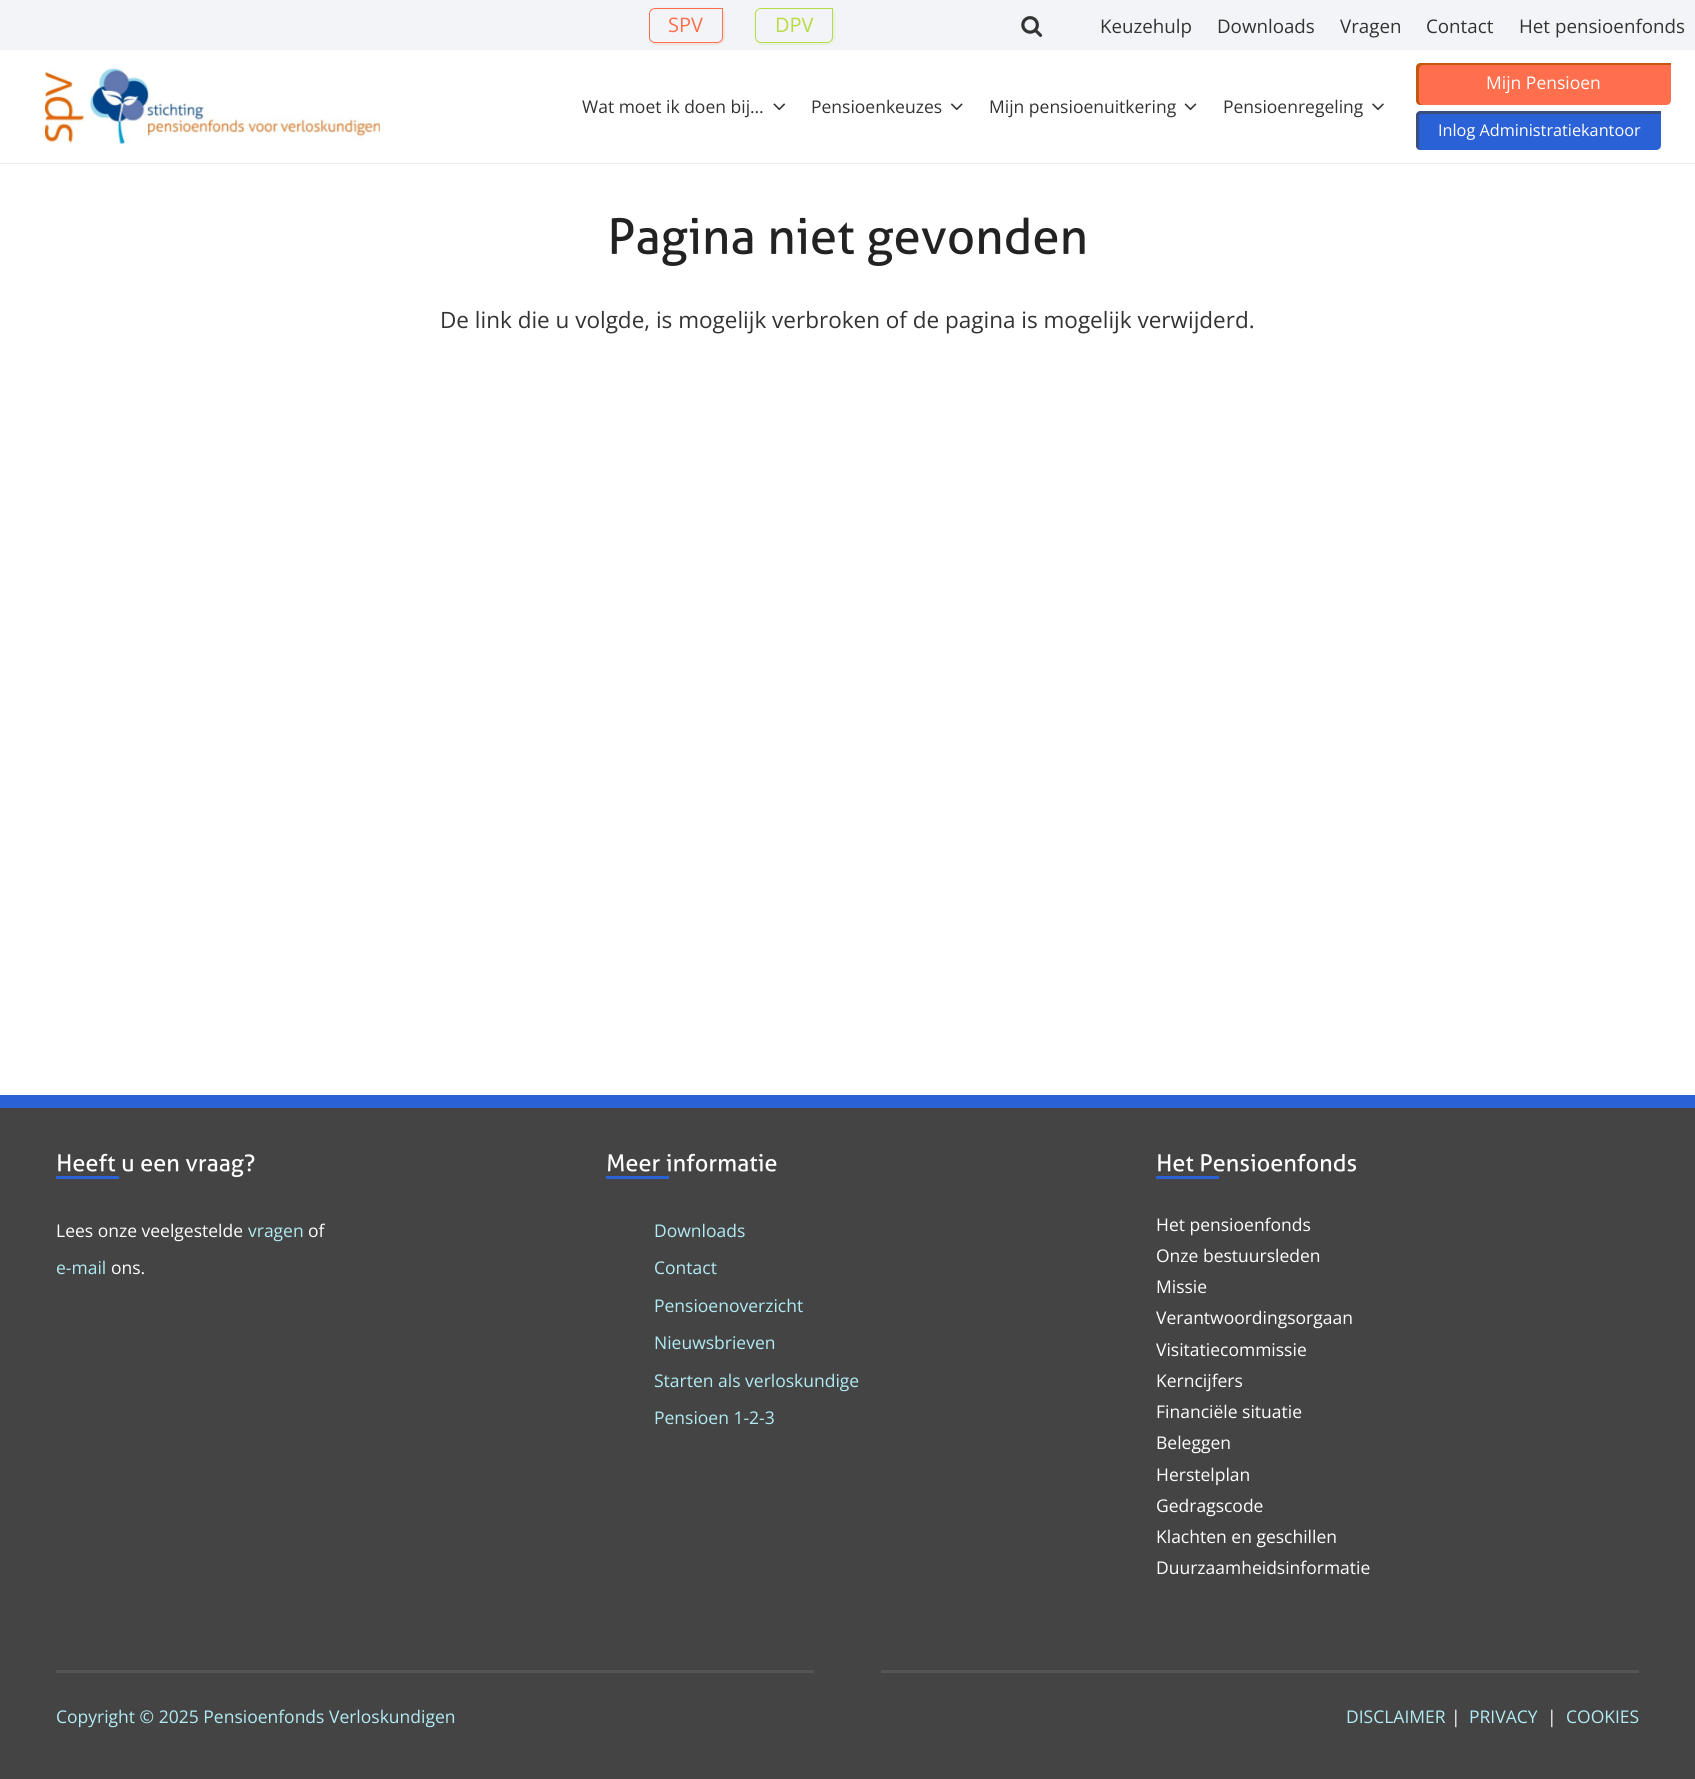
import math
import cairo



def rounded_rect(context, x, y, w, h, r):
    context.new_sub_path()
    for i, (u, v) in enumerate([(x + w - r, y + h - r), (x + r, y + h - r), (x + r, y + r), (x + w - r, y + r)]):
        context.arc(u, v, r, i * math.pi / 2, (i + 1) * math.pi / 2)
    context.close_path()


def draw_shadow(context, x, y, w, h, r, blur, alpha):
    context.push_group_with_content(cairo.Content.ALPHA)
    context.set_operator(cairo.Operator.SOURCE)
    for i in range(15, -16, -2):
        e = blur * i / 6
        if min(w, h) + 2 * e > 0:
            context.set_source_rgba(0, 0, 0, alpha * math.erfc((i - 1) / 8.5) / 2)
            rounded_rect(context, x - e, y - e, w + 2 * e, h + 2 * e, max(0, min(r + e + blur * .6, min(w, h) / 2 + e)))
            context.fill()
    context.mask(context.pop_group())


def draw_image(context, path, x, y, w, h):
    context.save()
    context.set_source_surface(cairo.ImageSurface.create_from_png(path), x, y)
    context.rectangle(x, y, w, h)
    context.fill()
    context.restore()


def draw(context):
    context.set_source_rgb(1, 1, 1)
    context.paint()
    context.set_source_rgb(242 / 255, 244 / 255, 247 / 255)
    context.rectangle(0, 0, 1695, 50)
    context.fill()
    context.save()
    context.set_fill_rule(cairo.FillRule.EVEN_ODD)
    context.new_path()
    context.move_to(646, 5)
    context.line_to(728, 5)
    context.line_to(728, 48)
    context.line_to(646, 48)
    context.close_path()
    context.move_to(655, 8)
    context.line_to(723, 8)
    context.line_to(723, 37)
    context.curve_to(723, 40.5, 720.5, 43, 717, 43)
    context.line_to(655, 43)
    context.curve_to(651.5, 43, 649, 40.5, 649, 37)
    context.line_to(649, 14)
    context.curve_to(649, 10.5, 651.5, 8, 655, 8)
    context.close_path()
    context.clip()
    context.set_source_rgb(199 / 255, 91 / 255, 4 / 255)
    draw_shadow(context, 649, 8, 76, 37, 8, 0.5, 0.1)
    context.restore()
    context.new_path()
    context.move_to(655, 8.5)
    context.line_to(722.5, 8.5)
    context.line_to(722.5, 37)
    context.curve_to(722.5, 40, 720, 42.5, 717, 42.5)
    context.line_to(655, 42.5)
    context.curve_to(652, 42.5, 649.5, 40, 649.5, 37)
    context.line_to(649.5, 14)
    context.curve_to(649.5, 11, 652, 8.5, 655, 8.5)
    context.close_path()
    context.set_source_rgb(1, 110 / 255, 77 / 255)
    context.set_line_width(1)
    context.stroke()
    context.save()
    context.set_fill_rule(cairo.FillRule.EVEN_ODD)
    context.new_path()
    context.move_to(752, 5)
    context.line_to(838, 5)
    context.line_to(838, 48)
    context.line_to(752, 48)
    context.close_path()
    context.move_to(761, 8)
    context.line_to(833, 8)
    context.line_to(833, 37)
    context.curve_to(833, 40.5, 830.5, 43, 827, 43)
    context.line_to(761, 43)
    context.curve_to(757.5, 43, 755, 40.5, 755, 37)
    context.line_to(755, 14)
    context.curve_to(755, 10.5, 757.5, 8, 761, 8)
    context.close_path()
    context.clip()
    context.set_source_rgb(127 / 255, 202 / 255, 50 / 255)
    draw_shadow(context, 755, 8, 80, 37, 8, 0.5, 0.1)
    context.restore()
    context.new_path()
    context.move_to(761, 8.5)
    context.line_to(832.5, 8.5)
    context.line_to(832.5, 37)
    context.curve_to(832.5, 40, 830, 42.5, 827, 42.5)
    context.line_to(761, 42.5)
    context.curve_to(758, 42.5, 755.5, 40, 755.5, 37)
    context.line_to(755.5, 14)
    context.curve_to(755.5, 11, 758, 8.5, 761, 8.5)
    context.close_path()
    context.set_source_rgb(183 / 255, 219 / 255, 66 / 255)
    context.stroke()
    draw_image(context, "images/1.png", 1021, 16, 22, 21)
    context.set_source_rgb(235 / 255, 235 / 255, 235 / 255)
    context.rectangle(0, 163, 1695, 1)
    context.fill()
    draw_image(context, "images/2.png", 45, 68, 335, 76)
    draw_image(context, "images/3.png", 773, 103, 13, 8)
    draw_image(context, "images/4.png", 950, 103, 13, 8)
    draw_image(context, "images/5.png", 1184, 103, 13, 8)
    draw_image(context, "images/6.png", 1372, 103, 12, 8)
    context.set_source_rgb(1, 110 / 255, 77 / 255)
    context.new_path()
    context.move_to(1421, 63)
    context.line_to(1671, 63)
    context.line_to(1671, 100)
    context.curve_to(1671, 103, 1669, 105, 1666, 105)
    context.line_to(1421, 105)
    context.curve_to(1418, 105, 1416, 103, 1416, 100)
    context.line_to(1416, 68)
    context.curve_to(1416, 65, 1418, 63, 1421, 63)
    context.close_path()
    context.fill()
    context.set_source_rgb(194 / 255, 89 / 255, 14 / 255)
    context.new_path()
    context.move_to(1423, 65)
    context.line_to(1671, 65)
    context.line_to(1671, 63)
    context.line_to(1421, 63)
    context.curve_to(1418, 63, 1416, 65, 1416, 68)
    context.line_to(1416, 100)
    context.curve_to(1416, 103, 1418, 105, 1421, 105)
    context.line_to(1423, 105)
    context.curve_to(1421, 105, 1419, 103, 1419, 101)
    context.line_to(1419, 69)
    context.curve_to(1419, 67, 1421, 65, 1423, 65)
    context.close_path()
    context.fill()
    context.set_source_rgb(43 / 255, 97 / 255, 214 / 255)
    context.new_path()
    context.move_to(1421, 111)
    context.line_to(1661, 111)
    context.line_to(1661, 145)
    context.curve_to(1661, 148, 1659, 150, 1656, 150)
    context.line_to(1421, 150)
    context.curve_to(1418, 150, 1416, 148, 1416, 145)
    context.line_to(1416, 116)
    context.curve_to(1416, 113, 1418, 111, 1421, 111)
    context.close_path()
    context.fill()
    context.set_source_rgb(59 / 255, 79 / 255, 125 / 255)
    context.new_path()
    context.move_to(1422, 114)
    context.line_to(1661, 114)
    context.line_to(1661, 111)
    context.line_to(1421, 111)
    context.curve_to(1418, 111, 1416, 113, 1416, 116)
    context.line_to(1416, 145)
    context.curve_to(1416, 148, 1418, 150, 1421, 150)
    context.line_to(1422, 150)
    context.curve_to(1420, 150, 1419, 148, 1419, 146)
    context.line_to(1419, 117)
    context.curve_to(1419, 115, 1420, 114, 1422, 114)
    context.close_path()
    context.fill()
    draw_image(context, "images/7.png", 611, 217, 474, 49)
    context.set_source_rgb(68 / 255, 68 / 255, 68 / 255)
    context.rectangle(0, 1108, 1695, 671)
    context.fill()
    context.set_source_rgb(43 / 255, 97 / 255, 214 / 255)
    context.rectangle(0, 1095, 1695, 13)
    context.fill()
    draw_image(context, "images/8.png", 58, 1153, 197, 25)
    context.rectangle(56, 1176, 63, 3)
    context.fill()
    draw_image(context, "images/9.png", 608, 1153, 169, 19)
    context.rectangle(606, 1176, 63, 3)
    context.fill()
    draw_image(context, "images/10.png", 1158, 1153, 198, 19)
    context.rectangle(1156, 1176, 63, 3)
    context.fill()
    context.set_source_rgb(85 / 255, 85 / 255, 85 / 255)
    context.rectangle(56, 1670, 758, 3)
    context.fill()
    context.rectangle(881, 1670, 758, 3)
    context.fill()
    context.select_font_face("Open Sans")
    context.set_font_size(20)
    context.set_source_rgb(1, 110 / 255, 77 / 255)
    context.move_to(668, 32)
    context.show_text("SPV")
    context.set_source_rgb(183 / 255, 219 / 255, 66 / 255)
    context.move_to(775, 32)
    context.show_text("DPV")
    context.set_font_size(18.75)
    context.set_source_rgb(51 / 255, 51 / 255, 51 / 255)
    context.move_to(1100, 33)
    context.show_text("Keuzehulp")
    context.move_to(1217, 33)
    context.show_text("Downloads")
    context.move_to(1340, 33)
    context.show_text("Vragen")
    context.move_to(1426, 33)
    context.show_text("Contact")
    context.move_to(1519, 33)
    context.show_text("Het pensioenfonds")
    context.set_font_size(17.5)
    context.move_to(582, 113)
    context.show_text("Wat moet ik doen bij…")
    context.move_to(811, 113)
    context.show_text("Pensioenkeuzes")
    context.move_to(989, 113)
    context.show_text("Mijn pensioenuitkering")
    context.move_to(1223, 113)
    context.show_text("Pensioenregeling")
    context.set_source_rgb(1, 1, 1)
    context.move_to(1486, 89)
    context.show_text("Mijn Pensioen")
    context.set_font_size(16.25)
    context.move_to(1438, 136)
    context.show_text("Inlog Administratiekantoor")
    context.set_font_size(22.5)
    context.set_source_rgb(51 / 255, 51 / 255, 51 / 255)
    context.move_to(440, 328)
    context.show_text("De link die u volgde, is mogelijk verbroken of de pagina is mogelijk verwijderd.")
    context.set_font_size(17.5)
    context.set_source_rgb(1, 1, 1)
    context.move_to(56, 1237)
    context.show_text("Lees onze veelgestelde")
    context.set_source_rgb(178 / 255, 235 / 255, 243 / 255)
    context.move_to(248, 1237)
    context.show_text("vragen")
    context.set_source_rgb(1, 1, 1)
    context.move_to(308, 1237)
    context.show_text("of")
    context.set_source_rgb(178 / 255, 235 / 255, 243 / 255)
    context.move_to(56, 1274)
    context.show_text("e-mail")
    context.set_source_rgb(1, 1, 1)
    context.move_to(111, 1274)
    context.show_text("ons.")
    context.set_source_rgb(178 / 255, 235 / 255, 243 / 255)
    context.move_to(654, 1237)
    context.show_text("Downloads")
    context.move_to(654, 1274)
    context.show_text("Contact")
    context.move_to(654, 1312)
    context.show_text("Pensioenoverzicht")
    context.move_to(654, 1349)
    context.show_text("Nieuwsbrieven")
    context.move_to(654, 1387)
    context.show_text("Starten als verloskundige")
    context.move_to(654, 1424)
    context.show_text("Pensioen 1-2-3")
    context.set_source_rgb(1, 1, 1)
    context.move_to(1156, 1231)
    context.show_text("Het pensioenfonds")
    context.move_to(1156, 1262)
    context.show_text("Onze bestuursleden")
    context.move_to(1156, 1293)
    context.show_text("Missie")
    context.move_to(1156, 1324)
    context.show_text("Verantwoordingsorgaan")
    context.move_to(1156, 1356)
    context.show_text("Visitatiecommissie")
    context.move_to(1156, 1387)
    context.show_text("Kerncijfers")
    context.move_to(1156, 1418)
    context.show_text("Financiële situatie")
    context.move_to(1156, 1449)
    context.show_text("Beleggen")
    context.move_to(1156, 1481)
    context.show_text("Herstelplan")
    context.move_to(1156, 1512)
    context.show_text("Gedragscode")
    context.move_to(1156, 1543)
    context.show_text("Klachten en geschillen")
    context.move_to(1156, 1574)
    context.show_text("Duurzaamheidsinformatie")
    context.set_source_rgb(178 / 255, 235 / 255, 243 / 255)
    context.move_to(56, 1723)
    context.show_text("Copyright © 2025 Pensioenfonds Verloskundigen")
    context.move_to(1346, 1723)
    context.show_text("DISCLAIMER")
    context.set_source_rgb(1, 1, 1)
    context.move_to(1451, 1723)
    context.show_text("|")
    context.set_source_rgb(178 / 255, 235 / 255, 243 / 255)
    context.move_to(1469, 1723)
    context.show_text("PRIVACY")
    context.set_source_rgb(1, 1, 1)
    context.move_to(1547, 1723)
    context.show_text("|")
    context.set_source_rgb(178 / 255, 235 / 255, 243 / 255)
    context.move_to(1566, 1723)
    context.show_text("COOKIES")


surface = cairo.ImageSurface(cairo.Format.RGB24, 1695, 1779)
context = cairo.Context(surface)
options = cairo.FontOptions()
options.set_hint_metrics(cairo.HintMetrics.OFF)
options.set_hint_style(cairo.HintStyle.NONE)
context.set_font_options(options)
context.set_miter_limit(4)
draw(context)
surface.write_to_png("out.png")
